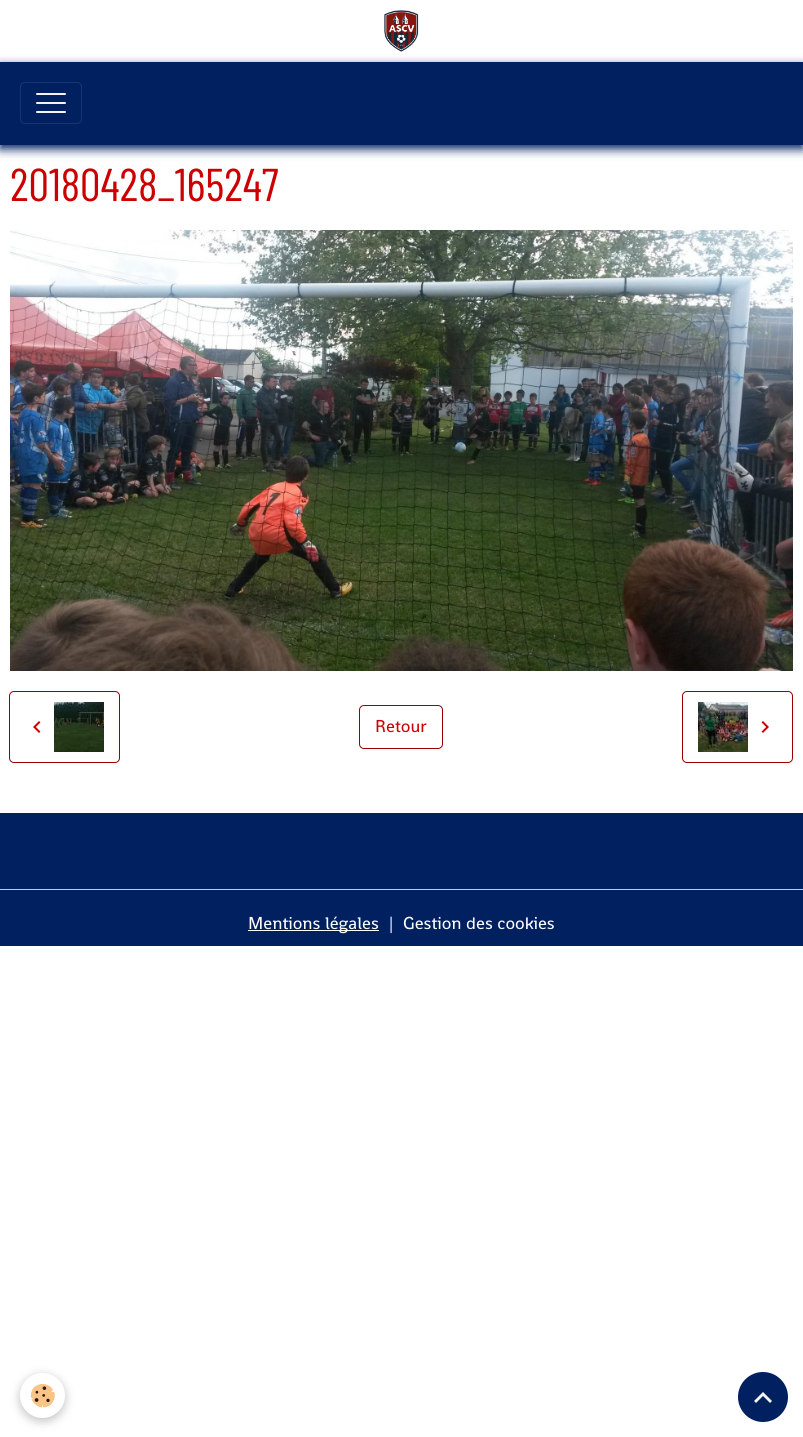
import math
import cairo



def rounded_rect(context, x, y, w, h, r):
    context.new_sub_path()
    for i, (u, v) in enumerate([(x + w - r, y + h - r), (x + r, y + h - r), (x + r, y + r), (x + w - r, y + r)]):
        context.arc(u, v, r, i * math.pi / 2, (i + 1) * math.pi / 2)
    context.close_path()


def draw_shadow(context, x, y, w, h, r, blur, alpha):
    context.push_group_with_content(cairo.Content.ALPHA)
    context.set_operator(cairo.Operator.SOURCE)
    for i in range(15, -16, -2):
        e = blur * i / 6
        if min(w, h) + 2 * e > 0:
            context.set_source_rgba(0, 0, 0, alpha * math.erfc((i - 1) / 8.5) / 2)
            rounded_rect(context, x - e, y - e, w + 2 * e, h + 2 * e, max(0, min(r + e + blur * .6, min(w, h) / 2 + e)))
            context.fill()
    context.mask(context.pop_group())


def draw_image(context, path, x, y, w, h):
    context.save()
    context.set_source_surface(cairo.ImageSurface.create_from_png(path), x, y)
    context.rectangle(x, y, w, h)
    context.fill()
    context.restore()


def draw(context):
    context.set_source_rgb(1, 1, 1)
    context.paint()
    draw_image(context, "images/1.png", 384, 10, 35, 42)
    context.set_source_rgb(0, 32 / 255, 96 / 255)
    draw_shadow(context, 0, 66, 803, 83, 0, 5, 1)
    context.set_source_rgb(0, 32 / 255, 96 / 255)
    context.rectangle(0, 62, 803, 83)
    context.fill()
    rounded_rect(context, 20.5, 82.5, 61, 41, 4.5)
    context.set_source_rgb(24 / 255, 53 / 255, 111 / 255)
    context.set_line_width(1)
    context.stroke()
    context.set_source_rgb(244 / 255, 242 / 255, 243 / 255)
    rounded_rect(context, 36, 93, 30, 2, 1)
    context.fill()
    rounded_rect(context, 36, 102, 30, 2, 1)
    context.fill()
    rounded_rect(context, 36, 111, 30, 2, 1)
    context.fill()
    draw_image(context, "images/2.png", 10, 230, 783, 441)
    rounded_rect(context, 9.5, 691.5, 110, 71, 4.5)
    context.set_source_rgb(153 / 255, 0, 0)
    context.stroke()
    draw_image(context, "images/3.png", 33, 721, 8, 12)
    draw_image(context, "images/4.png", 54, 702, 50, 50)
    rounded_rect(context, 359.5, 705.5, 83, 43, 4.5)
    context.stroke()
    rounded_rect(context, 682.5, 691.5, 110, 71, 4.5)
    context.stroke()
    draw_image(context, "images/5.png", 698, 702, 50, 50)
    draw_image(context, "images/6.png", 761, 721, 8, 12)
    context.set_source_rgb(0, 32 / 255, 96 / 255)
    context.rectangle(0, 813, 803, 133)
    context.fill()
    context.set_source_rgb(204 / 255, 204 / 255, 204 / 255)
    context.rectangle(0, 889, 803, 1)
    context.fill()
    context.set_source_rgb(1, 1, 1)
    context.rectangle(248, 930, 131, 1)
    context.fill()
    context.set_source_rgb(0, 0, 0)
    draw_shadow(context, 20, 1376, 45, 45, 22.5, 5, 0.24)
    context.set_source_rgb(1, 1, 1)
    context.arc(42.5, 1395.5, 22.5, 0, 2 * math.pi)
    context.fill()
    draw_image(context, "images/7.png", 30, 1383, 25, 25)
    context.set_source_rgb(0, 32 / 255, 96 / 255)
    context.arc(763, 1397, 25, 0, 2 * math.pi)
    context.fill()
    context.set_source_rgb(243 / 255, 246 / 255, 244 / 255)
    context.new_path()
    context.move_to(763, 1392)
    context.line_to(772, 1401)
    context.line_to(770, 1403)
    context.line_to(763, 1396)
    context.line_to(756, 1403)
    context.line_to(754, 1401)
    context.close_path()
    context.fill()
    context.select_font_face("Barlow Condensed")
    context.set_font_size(46)
    context.set_source_rgb(204 / 255, 0, 0)
    context.move_to(10, 201)
    context.show_text("20180428_165247")
    context.select_font_face("Shanti")
    context.set_font_size(17.5)
    context.move_to(375, 732)
    context.show_text("Retour")
    context.set_source_rgb(1, 1, 1)
    context.move_to(248, 929)
    context.show_text("Mentions légales")
    context.set_source_rgb(204 / 255, 210 / 255, 223 / 255)
    context.move_to(389, 929)
    context.show_text("|")
    context.set_source_rgb(1, 1, 1)
    context.move_to(403, 929)
    context.show_text("Gestion des cookies")


surface = cairo.ImageSurface(cairo.Format.RGB24, 803, 1437)
context = cairo.Context(surface)
options = cairo.FontOptions()
options.set_hint_metrics(cairo.HintMetrics.OFF)
options.set_hint_style(cairo.HintStyle.NONE)
context.set_font_options(options)
context.set_miter_limit(4)
draw(context)
surface.write_to_png("out.png")
